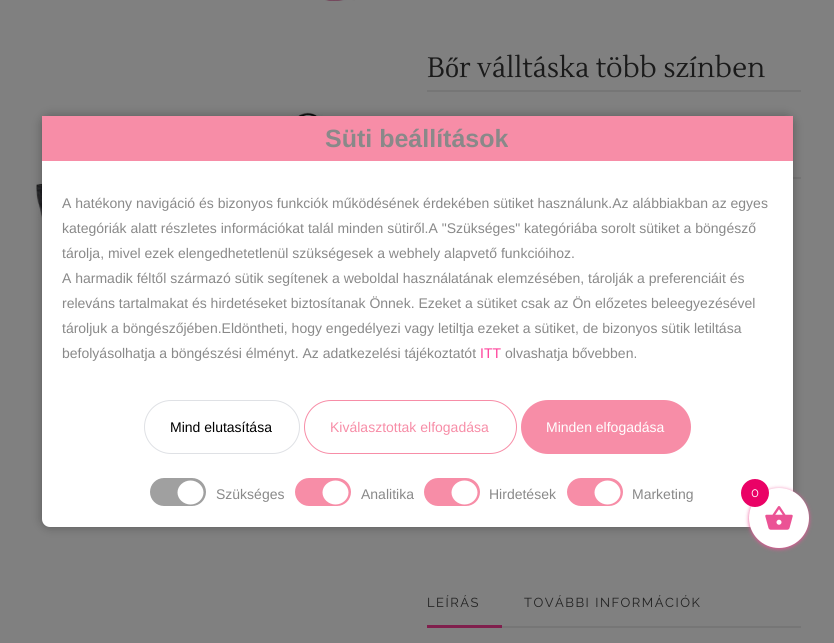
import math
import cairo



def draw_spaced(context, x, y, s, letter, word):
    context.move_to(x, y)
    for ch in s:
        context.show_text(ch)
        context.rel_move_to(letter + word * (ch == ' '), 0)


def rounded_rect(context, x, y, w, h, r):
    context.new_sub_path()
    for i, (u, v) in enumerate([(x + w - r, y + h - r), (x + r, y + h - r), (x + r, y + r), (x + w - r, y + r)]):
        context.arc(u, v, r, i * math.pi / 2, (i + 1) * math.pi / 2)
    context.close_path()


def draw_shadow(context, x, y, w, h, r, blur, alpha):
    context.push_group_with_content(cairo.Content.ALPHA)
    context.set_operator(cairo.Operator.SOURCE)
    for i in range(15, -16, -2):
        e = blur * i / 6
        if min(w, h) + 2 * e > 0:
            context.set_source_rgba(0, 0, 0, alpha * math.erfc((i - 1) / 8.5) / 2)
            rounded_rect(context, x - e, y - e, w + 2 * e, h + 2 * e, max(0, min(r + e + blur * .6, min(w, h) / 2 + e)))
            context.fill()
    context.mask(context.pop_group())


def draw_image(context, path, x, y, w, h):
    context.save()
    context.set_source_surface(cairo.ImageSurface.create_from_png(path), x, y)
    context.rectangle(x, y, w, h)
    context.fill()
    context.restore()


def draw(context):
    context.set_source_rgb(128 / 255, 128 / 255, 128 / 255)
    context.paint()
    draw_image(context, "images/1.png", 325, 0, 30, 1)
    draw_image(context, "images/2.png", 35, 112, 334, 216)
    context.set_source_rgb(118 / 255, 118 / 255, 118 / 255)
    context.rectangle(427, 90, 374, 2)
    context.fill()
    context.rectangle(793, 177, 8, 2)
    context.fill()
    context.rectangle(502, 626, 299, 2)
    context.fill()
    context.set_source_rgb(128 / 255, 31 / 255, 77 / 255)
    context.rectangle(427, 625, 75, 3)
    context.fill()
    context.set_source_rgb(0, 0, 0)
    draw_shadow(context, 42, 116, 751, 411, 8, 5, 0.3)
    context.set_source_rgb(1, 1, 1)
    rounded_rect(context, 42, 116, 751, 411, 8)
    context.fill()
    context.set_source_rgb(247 / 255, 141 / 255, 167 / 255)
    context.rectangle(42, 116, 751, 45)
    context.fill()
    rounded_rect(context, 144.5, 400.5, 155, 53, 26.5)
    context.set_source_rgb(223 / 255, 225 / 255, 229 / 255)
    context.set_line_width(1)
    context.stroke()
    rounded_rect(context, 304.5, 400.5, 212, 53, 26.5)
    context.set_source_rgb(247 / 255, 141 / 255, 167 / 255)
    context.stroke()
    rounded_rect(context, 521, 400, 170, 54, 27)
    context.fill()
    context.set_source_rgb(160 / 255, 160 / 255, 160 / 255)
    rounded_rect(context, 150, 478, 56, 28, 14)
    context.fill()
    context.set_source_rgb(1, 1, 1)
    context.new_path()
    context.move_to(190.5, 480.5)
    context.curve_to(197.5, 480.5, 203.5, 486, 203.5, 492.5)
    context.curve_to(203.5, 499, 197.5, 504.5, 190.5, 504.5)
    context.curve_to(183.5, 504.5, 177.5, 499, 177.5, 492.5)
    context.curve_to(177.5, 486, 183.5, 480.5, 190.5, 480.5)
    context.close_path()
    context.fill()
    context.set_source_rgb(247 / 255, 141 / 255, 167 / 255)
    rounded_rect(context, 295, 478, 56, 28, 14)
    context.fill()
    context.set_source_rgb(1, 1, 1)
    context.new_path()
    context.move_to(335.5, 480.5)
    context.curve_to(342.5, 480.5, 348.5, 486, 348.5, 492.5)
    context.curve_to(348.5, 499, 342.5, 504.5, 335.5, 504.5)
    context.curve_to(328.5, 504.5, 322.5, 499, 322.5, 492.5)
    context.curve_to(322.5, 486, 328.5, 480.5, 335.5, 480.5)
    context.close_path()
    context.fill()
    context.set_source_rgb(247 / 255, 141 / 255, 167 / 255)
    rounded_rect(context, 424, 478, 56, 28, 14)
    context.fill()
    context.set_source_rgb(1, 1, 1)
    context.new_path()
    context.move_to(464.5, 480.5)
    context.curve_to(471.5, 480.5, 477.5, 486, 477.5, 492.5)
    context.curve_to(477.5, 499, 471.5, 504.5, 464.5, 504.5)
    context.curve_to(457.5, 504.5, 451.5, 499, 451.5, 492.5)
    context.curve_to(451.5, 486, 457.5, 480.5, 464.5, 480.5)
    context.close_path()
    context.fill()
    context.set_source_rgb(247 / 255, 141 / 255, 167 / 255)
    rounded_rect(context, 567, 478, 56, 28, 14)
    context.fill()
    context.set_source_rgb(1, 1, 1)
    context.new_path()
    context.move_to(607.5, 480.5)
    context.curve_to(614.5, 480.5, 620.5, 486, 620.5, 492.5)
    context.curve_to(620.5, 499, 614.5, 504.5, 607.5, 504.5)
    context.curve_to(600.5, 504.5, 594.5, 499, 594.5, 492.5)
    context.curve_to(594.5, 486, 600.5, 480.5, 607.5, 480.5)
    context.close_path()
    context.fill()
    context.set_source_rgb(235 / 255, 83 / 255, 149 / 255)
    draw_shadow(context, 749, 489, 60, 60, 30, 2, 1)
    context.set_source_rgb(1, 1, 1)
    context.arc(779, 518, 30, 0, 2 * math.pi)
    context.fill()
    draw_image(context, "images/3.png", 765, 506, 28, 24)
    context.set_source_rgb(234 / 255, 2 / 255, 102 / 255)
    context.arc(755, 493, 14, 0, 2 * math.pi)
    context.fill()
    context.select_font_face("Lustria")
    context.set_font_size(28)
    context.set_source_rgb(26 / 255, 26 / 255, 26 / 255)
    context.move_to(427, 77)
    context.show_text("B")
    context.select_font_face("Liberation Serif")
    context.move_to(445, 77)
    context.show_text("ő")
    context.select_font_face("Lustria")
    context.move_to(459, 77)
    context.show_text("r válltáska több színben")
    context.select_font_face("Raleway")
    context.set_font_size(13)
    context.set_source_rgb(34 / 255, 34 / 255, 34 / 255)
    draw_spaced(context, 427, 607, "LEÍRÁS", 1.5, 0)
    draw_spaced(context, 524, 607, "TOVÁBBI INFORMÁCIÓK", 1.5, 0)
    context.select_font_face("Liberation Sans", cairo.FontSlant.NORMAL, cairo.FontWeight.BOLD)
    context.set_font_size(25)
    context.set_source_rgb(137 / 255, 137 / 255, 137 / 255)
    context.move_to(325, 147)
    context.show_text("Süti beállítások")
    context.select_font_face("Liberation Sans")
    context.set_font_size(14)
    context.move_to(62, 208)
    context.show_text("A hatékony navigáció és bizonyos funkciók működésének érdekében sütiket használunk.Az alábbiakban az egyes")
    context.move_to(62, 233)
    context.show_text("kategóriák alatt részletes információkat talál minden sütiről.A \"Szükséges\" kategóriába sorolt sütiket a böngésző")
    context.move_to(62, 258)
    context.show_text("tárolja, mivel ezek elengedhetetlenül szükségesek a webhely alapvető funkcióihoz.")
    context.move_to(62, 283)
    context.show_text("A harmadik féltől származó sütik segítenek a weboldal használatának elemzésében, tárolják a preferenciáit és")
    context.move_to(62, 308)
    context.show_text("releváns tartalmakat és hirdetéseket biztosítanak Önnek. Ezeket a sütiket csak az Ön előzetes beleegyezésével")
    context.move_to(62, 333)
    context.show_text("tároljuk a böngészőjében.Eldöntheti, hogy engedélyezi vagy letiltja ezeket a sütiket, de bizonyos sütik letiltása")
    context.move_to(62, 358)
    context.show_text("befolyásolhatja a böngészési élményt. Az adatkezelési tájékoztatót")
    context.set_source_rgb(1, 62 / 255, 153 / 255)
    context.move_to(480, 358)
    context.show_text("ITT")
    context.set_source_rgb(137 / 255, 137 / 255, 137 / 255)
    context.move_to(505, 358)
    context.show_text("olvashatja bővebben.")
    context.set_source_rgb(0, 0, 0)
    context.move_to(170, 432)
    context.show_text("Mind elutasítása")
    context.set_source_rgb(247 / 255, 141 / 255, 167 / 255)
    context.move_to(330, 432)
    context.show_text("Kiválasztottak elfogadása")
    context.set_source_rgb(1, 1, 1)
    context.move_to(546, 432)
    context.show_text("Minden elfogadása")
    context.set_source_rgb(137 / 255, 137 / 255, 137 / 255)
    context.move_to(216, 499)
    context.show_text("Szükséges")
    context.move_to(361, 499)
    context.show_text("Analitika")
    context.move_to(489, 499)
    context.show_text("Hirdetések")
    context.move_to(632, 499)
    context.show_text("Marketing")
    context.select_font_face("Raleway")
    context.set_font_size(13)
    context.set_source_rgb(1, 1, 1)
    context.move_to(751, 497)
    context.show_text("0")


surface = cairo.ImageSurface(cairo.Format.RGB24, 834, 643)
context = cairo.Context(surface)
options = cairo.FontOptions()
options.set_hint_metrics(cairo.HintMetrics.OFF)
options.set_hint_style(cairo.HintStyle.NONE)
context.set_font_options(options)
context.set_miter_limit(4)
draw(context)
surface.write_to_png("out.png")
